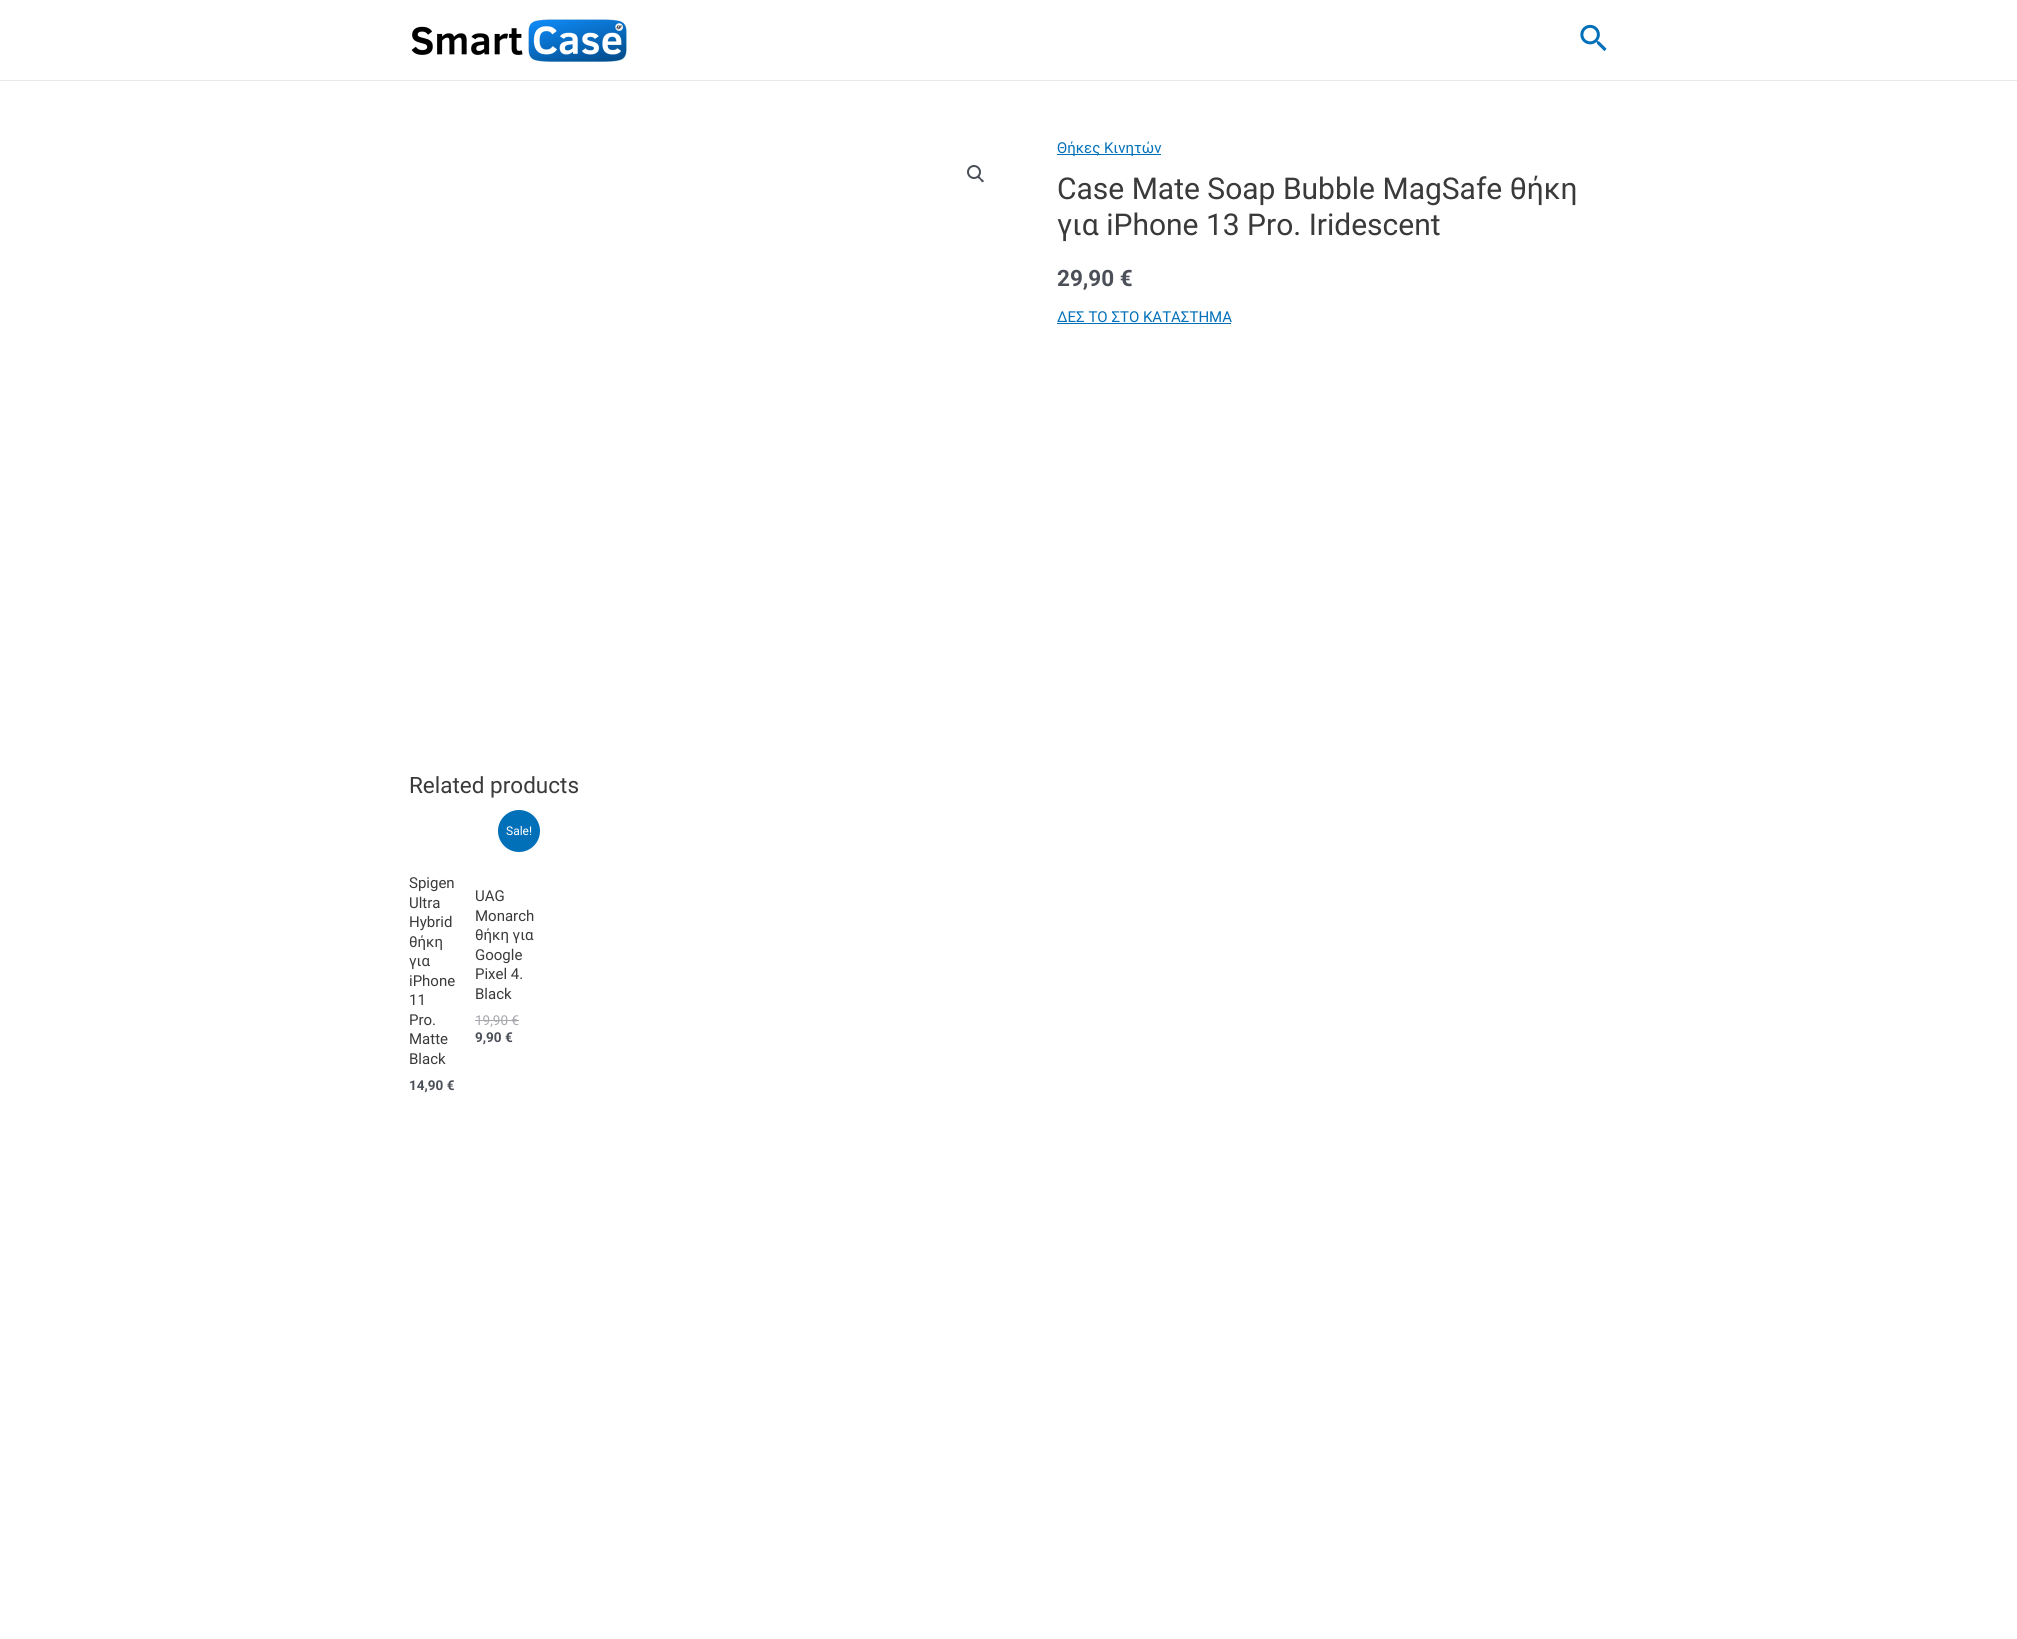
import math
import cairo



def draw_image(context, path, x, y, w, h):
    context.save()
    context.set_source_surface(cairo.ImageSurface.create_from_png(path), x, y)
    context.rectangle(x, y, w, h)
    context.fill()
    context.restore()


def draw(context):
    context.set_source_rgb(1, 1, 1)
    context.paint()
    context.set_source_rgb(234 / 255, 234 / 255, 234 / 255)
    context.rectangle(0, 80, 2017, 1)
    context.fill()
    draw_image(context, "images/1.png", 411, 19, 216, 43)
    draw_image(context, "images/2.png", 1580, 24, 27, 27)
    context.arc(974, 172, 6, 0, 2 * math.pi)
    context.set_source_rgb(75 / 255, 79 / 255, 88 / 255)
    context.stroke()
    context.new_path()
    context.move_to(977.5, 176)
    context.curve_to(979, 175, 980.5, 177.5, 981, 178.5)
    context.curve_to(982, 179, 984.5, 180.5, 983.5, 182)
    context.curve_to(982, 183, 980.5, 180.5, 980, 179.5)
    context.curve_to(979, 179, 976.5, 177.5, 977.5, 176)
    context.close_path()
    context.fill()
    context.set_source_rgb(1 / 255, 112 / 255, 185 / 255)
    context.rectangle(1057, 154, 104, 1)
    context.fill()
    context.rectangle(1057, 323, 174, 1)
    context.fill()
    context.arc(519, 831, 21, 0, 2 * math.pi)
    context.fill()
    context.set_source_rgb(165 / 255, 167 / 255, 172 / 255)
    context.rectangle(475, 1020, 44, 1)
    context.fill()
    context.select_font_face("Roboto")
    context.set_font_size(15)
    context.set_source_rgb(1 / 255, 112 / 255, 185 / 255)
    context.move_to(1057, 153)
    context.show_text("Θήκες Κινητών")
    context.set_font_size(30)
    context.set_source_rgb(58 / 255, 58 / 255, 58 / 255)
    context.move_to(1057, 199)
    context.show_text("Case Mate Soap Bubble MagSafe θήκη")
    context.move_to(1057, 235)
    context.show_text("για iPhone 13 Pro. Iridescent")
    context.select_font_face("Roboto", cairo.FontSlant.NORMAL, cairo.FontWeight.BOLD)
    context.set_font_size(22.5)
    context.set_source_rgb(75 / 255, 79 / 255, 88 / 255)
    context.move_to(1057, 286)
    context.show_text("29,90 €")
    context.select_font_face("Roboto")
    context.set_font_size(15)
    context.set_source_rgb(1 / 255, 112 / 255, 185 / 255)
    context.move_to(1057, 322)
    context.show_text("ΔΕΣ ΤΟ ΣΤΟ ΚΑΤΑΣΤΗΜΑ")
    context.set_font_size(22.5)
    context.set_source_rgb(58 / 255, 58 / 255, 58 / 255)
    context.move_to(409, 793)
    context.show_text("Related products")
    context.set_font_size(15)
    context.move_to(409, 888)
    context.show_text("Spigen")
    context.move_to(409, 908)
    context.show_text("Ultra")
    context.move_to(409, 927)
    context.show_text("Hybrid")
    context.move_to(409, 947)
    context.show_text("θήκη")
    context.move_to(409, 966)
    context.show_text("για")
    context.move_to(409, 986)
    context.show_text("iPhone")
    context.move_to(409, 1005)
    context.show_text("11")
    context.move_to(409, 1025)
    context.show_text("Pro.")
    context.move_to(409, 1044)
    context.show_text("Matte")
    context.move_to(409, 1064)
    context.show_text("Black")
    context.select_font_face("Roboto", cairo.FontSlant.NORMAL, cairo.FontWeight.BOLD)
    context.set_font_size(13.5)
    context.set_source_rgb(75 / 255, 79 / 255, 88 / 255)
    context.move_to(409, 1090)
    context.show_text("14,90 €")
    context.select_font_face("Roboto")
    context.set_font_size(12)
    context.set_source_rgb(1, 1, 1)
    context.move_to(506, 835)
    context.show_text("Sale!")
    context.set_font_size(15)
    context.set_source_rgb(58 / 255, 58 / 255, 58 / 255)
    context.move_to(475, 901)
    context.show_text("UAG")
    context.move_to(475, 921)
    context.show_text("Monarch")
    context.move_to(475, 940)
    context.show_text("θήκη για")
    context.move_to(475, 960)
    context.show_text("Google")
    context.move_to(475, 979)
    context.show_text("Pixel 4.")
    context.move_to(475, 999)
    context.show_text("Black")
    context.set_font_size(13.5)
    context.set_source_rgb(165 / 255, 167 / 255, 172 / 255)
    context.move_to(475, 1025)
    context.show_text("19,90 €")
    context.select_font_face("Roboto", cairo.FontSlant.NORMAL, cairo.FontWeight.BOLD)
    context.set_source_rgb(75 / 255, 79 / 255, 88 / 255)
    context.move_to(475, 1042)
    context.show_text("9,90 €")


surface = cairo.ImageSurface(cairo.Format.RGB24, 2017, 1639)
context = cairo.Context(surface)
options = cairo.FontOptions()
options.set_hint_metrics(cairo.HintMetrics.OFF)
options.set_hint_style(cairo.HintStyle.NONE)
context.set_font_options(options)
context.set_miter_limit(4)
draw(context)
surface.write_to_png("out.png")
